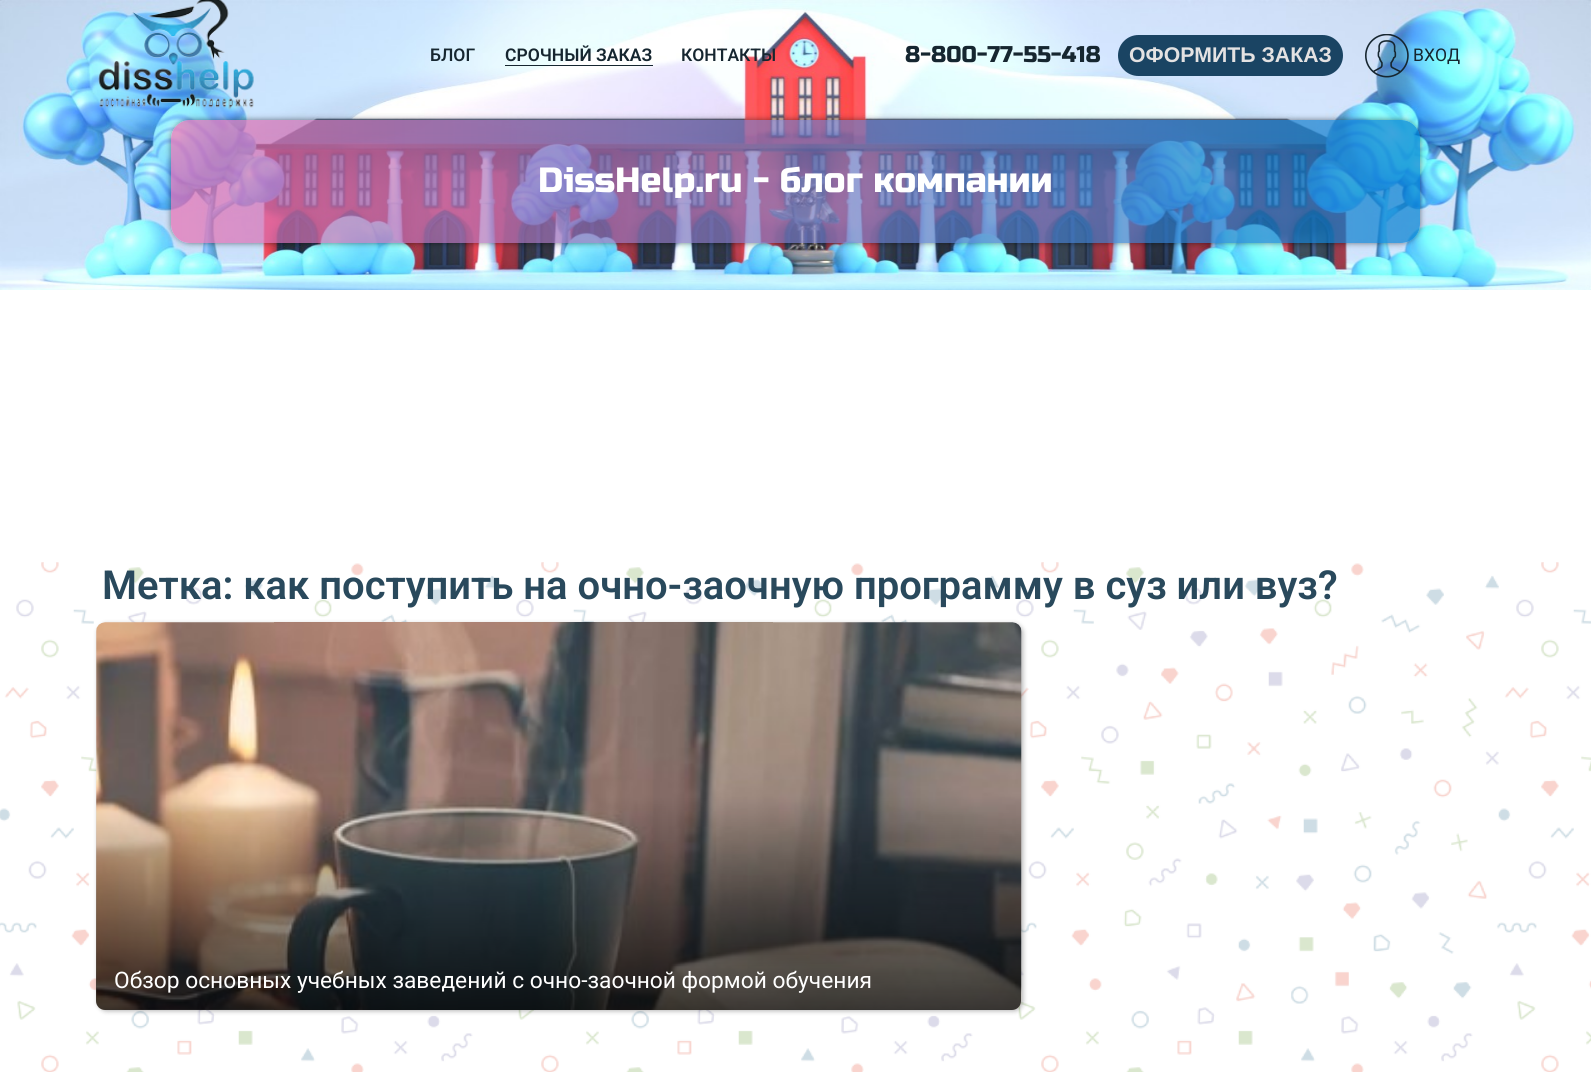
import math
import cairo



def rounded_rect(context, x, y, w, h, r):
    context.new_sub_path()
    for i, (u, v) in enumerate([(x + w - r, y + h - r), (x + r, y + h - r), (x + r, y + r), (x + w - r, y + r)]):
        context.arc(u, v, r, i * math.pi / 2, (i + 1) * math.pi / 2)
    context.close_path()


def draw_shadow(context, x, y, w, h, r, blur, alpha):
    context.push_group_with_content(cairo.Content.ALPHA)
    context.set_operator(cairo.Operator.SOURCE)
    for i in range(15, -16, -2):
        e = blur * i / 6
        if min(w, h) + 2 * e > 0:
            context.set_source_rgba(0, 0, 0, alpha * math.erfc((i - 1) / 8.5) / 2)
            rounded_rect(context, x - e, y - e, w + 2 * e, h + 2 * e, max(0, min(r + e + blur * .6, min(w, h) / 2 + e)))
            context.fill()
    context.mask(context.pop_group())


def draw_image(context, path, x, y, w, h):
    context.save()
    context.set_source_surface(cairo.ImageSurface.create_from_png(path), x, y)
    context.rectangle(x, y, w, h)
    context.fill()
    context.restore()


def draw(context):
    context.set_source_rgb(1, 1, 1)
    context.paint()
    draw_image(context, "images/1.png", 0, 0, 1591, 290)
    draw_image(context, "images/2.png", 98, 0, 156, 110)
    context.set_source_rgb(22 / 255, 38 / 255, 48 / 255)
    context.rectangle(505, 65, 148, 1)
    context.fill()
    context.set_source_rgb(26 / 255, 68 / 255, 99 / 255)
    rounded_rect(context, 1118, 35, 225, 41, 20.5)
    context.fill()
    draw_image(context, "images/3.png", 1365, 34, 44, 44)
    context.save()
    context.set_fill_rule(cairo.FillRule.EVEN_ODD)
    context.new_path()
    context.move_to(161, 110)
    context.line_to(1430, 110)
    context.line_to(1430, 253)
    context.line_to(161, 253)
    context.close_path()
    context.move_to(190, 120)
    context.line_to(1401, 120)
    context.curve_to(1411.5, 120, 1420, 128.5, 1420, 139)
    context.line_to(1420, 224)
    context.curve_to(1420, 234.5, 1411.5, 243, 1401, 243)
    context.line_to(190, 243)
    context.curve_to(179.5, 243, 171, 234.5, 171, 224)
    context.line_to(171, 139)
    context.curve_to(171, 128.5, 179.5, 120, 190, 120)
    context.close_path()
    context.clip()
    context.set_source_rgb(0, 0, 0)
    draw_shadow(context, 171, 120, 1249, 123, 19, 3, 0.5)
    context.restore()
    gradient = cairo.LinearGradient(171, 181, 1420, 181)
    gradient.add_color_stop_rgba(0, 234 / 255, 112 / 255, 178 / 255, 0.7)
    gradient.add_color_stop_rgba(1, 0, 128 / 255, 209 / 255, 0.7)
    context.set_source(gradient)
    rounded_rect(context, 171, 120, 1249, 123, 19)
    context.fill()
    draw_image(context, "images/4.png", 0, 562, 1591, 510)
    context.set_source_rgb(0, 0, 0)
    draw_shadow(context, 98, 624, 925, 387, 9, 2.5, 0.3)
    draw_image(context, "images/5.png", 96, 622, 926, 388)
    gradient = cairo.LinearGradient(559, 622, 559, 1010)
    gradient.add_color_stop_rgba(0, 0, 0, 0, 0)
    gradient.add_color_stop_rgba(0.45, 0, 0, 0, 0)
    gradient.add_color_stop_rgba(1, 0, 0, 0, 0.75)
    context.set_source(gradient)
    rounded_rect(context, 96, 623, 925, 387, 9)
    context.fill()
    context.select_font_face("Roboto Medium")
    context.set_font_size(17.5)
    context.set_source_rgb(22 / 255, 38 / 255, 48 / 255)
    context.move_to(430, 61)
    context.show_text("БЛОГ")
    context.select_font_face("Roboto SemiBold")
    context.move_to(505, 61)
    context.show_text("СРОЧНЫЙ ЗАКАЗ")
    context.select_font_face("Roboto Medium")
    context.move_to(681, 61)
    context.show_text("КОНТАКТЫ")
    context.select_font_face("Russo One")
    context.set_font_size(22.75)
    context.move_to(905, 62)
    context.show_text("8-800-77-55-418")
    context.select_font_face("Liberation Sans", cairo.FontSlant.NORMAL, cairo.FontWeight.BOLD)
    context.set_font_size(21.25)
    context.set_source_rgb(228 / 255, 226 / 255, 226 / 255)
    context.move_to(1129, 62)
    context.show_text("ОФОРМИТЬ ЗАКАЗ")
    context.select_font_face("Roboto")
    context.set_font_size(17.5)
    context.set_source_rgb(22 / 255, 38 / 255, 48 / 255)
    context.move_to(1413, 61)
    context.show_text("ВХОД")
    context.select_font_face("Russo One")
    context.set_font_size(35)
    context.set_source_rgb(1, 1, 1)
    context.move_to(538, 192)
    context.show_text("DissHelp.ru - блог компании")
    context.select_font_face("Roboto SemiBold")
    context.set_font_size(40)
    context.set_source_rgb(41 / 255, 73 / 255, 92 / 255)
    context.move_to(102, 599)
    context.show_text("Метка: как поступить на очно-заочную программу в суз или вуз?")
    context.select_font_face("Roboto")
    context.set_font_size(22.75)
    context.set_source_rgb(1, 1, 1)
    context.move_to(114, 988)
    context.show_text("Обзор основных учебных заведений с очно-заочной формой обучения")


surface = cairo.ImageSurface(cairo.Format.RGB24, 1591, 1072)
context = cairo.Context(surface)
options = cairo.FontOptions()
options.set_hint_metrics(cairo.HintMetrics.OFF)
options.set_hint_style(cairo.HintStyle.NONE)
context.set_font_options(options)
context.set_miter_limit(4)
draw(context)
surface.write_to_png("out.png")
